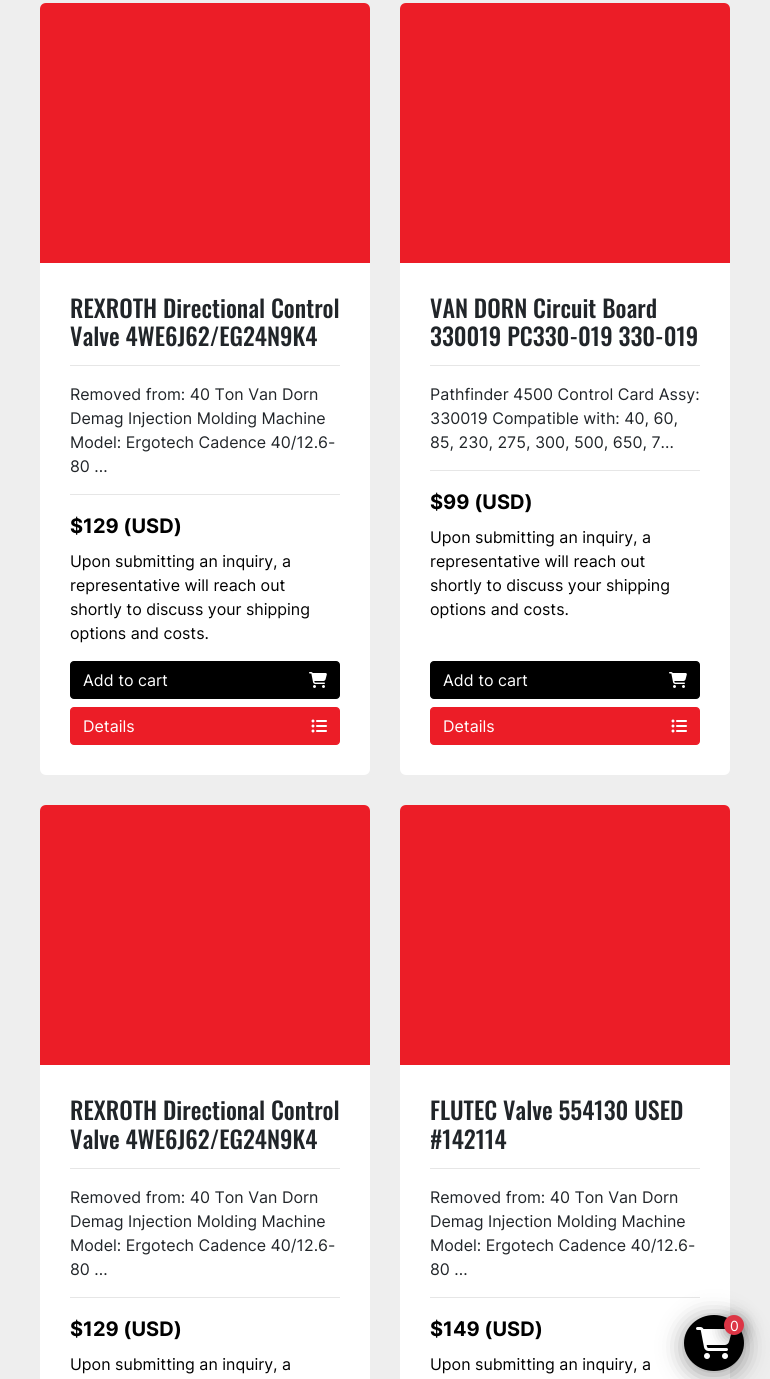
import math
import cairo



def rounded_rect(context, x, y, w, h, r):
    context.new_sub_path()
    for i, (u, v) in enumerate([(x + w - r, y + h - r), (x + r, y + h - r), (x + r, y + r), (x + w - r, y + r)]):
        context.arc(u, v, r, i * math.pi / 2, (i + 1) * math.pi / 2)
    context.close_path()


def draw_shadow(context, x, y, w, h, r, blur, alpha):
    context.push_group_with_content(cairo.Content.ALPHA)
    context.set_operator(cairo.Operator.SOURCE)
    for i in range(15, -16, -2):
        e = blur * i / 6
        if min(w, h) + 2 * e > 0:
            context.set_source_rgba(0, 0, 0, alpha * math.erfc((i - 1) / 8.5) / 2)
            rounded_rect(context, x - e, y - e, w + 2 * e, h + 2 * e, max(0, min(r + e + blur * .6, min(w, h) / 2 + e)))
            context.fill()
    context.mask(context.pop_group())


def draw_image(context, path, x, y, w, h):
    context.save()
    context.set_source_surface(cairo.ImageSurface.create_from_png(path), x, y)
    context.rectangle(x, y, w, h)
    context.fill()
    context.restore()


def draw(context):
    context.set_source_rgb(238 / 255, 238 / 255, 238 / 255)
    context.paint()
    context.set_source_rgb(1, 1, 1)
    rounded_rect(context, 40, 3, 330, 772, 6)
    context.fill()
    context.set_source_rgb(236 / 255, 29 / 255, 39 / 255)
    context.new_path()
    context.move_to(46, 3)
    context.line_to(364, 3)
    context.curve_to(367.5, 3, 370, 5.5, 370, 9)
    context.line_to(370, 263)
    context.line_to(40, 263)
    context.line_to(40, 9)
    context.curve_to(40, 5.5, 42.5, 3, 46, 3)
    context.close_path()
    context.fill()
    context.set_source_rgb(230 / 255, 230 / 255, 230 / 255)
    context.rectangle(70, 365, 270, 1)
    context.fill()
    context.rectangle(70, 494, 270, 1)
    context.fill()
    context.set_source_rgb(0, 0, 0)
    rounded_rect(context, 70.5, 661.5, 269, 37, 3.5)
    context.fill_preserve()
    context.set_line_width(1)
    context.stroke()
    draw_image(context, "images/1.png", 309, 672, 18, 16)
    context.set_source_rgb(236 / 255, 29 / 255, 39 / 255)
    rounded_rect(context, 70.5, 707.5, 269, 37, 3.5)
    context.fill_preserve()
    context.stroke()
    draw_image(context, "images/2.png", 311, 719, 16, 14)
    context.set_source_rgb(1, 1, 1)
    rounded_rect(context, 400, 3, 330, 772, 6)
    context.fill()
    context.set_source_rgb(236 / 255, 29 / 255, 39 / 255)
    context.new_path()
    context.move_to(406, 3)
    context.line_to(724, 3)
    context.curve_to(727.5, 3, 730, 5.5, 730, 9)
    context.line_to(730, 263)
    context.line_to(400, 263)
    context.line_to(400, 9)
    context.curve_to(400, 5.5, 402.5, 3, 406, 3)
    context.close_path()
    context.fill()
    context.set_source_rgb(230 / 255, 230 / 255, 230 / 255)
    context.rectangle(430, 365, 270, 1)
    context.fill()
    context.rectangle(430, 470, 270, 1)
    context.fill()
    context.set_source_rgb(0, 0, 0)
    rounded_rect(context, 430.5, 661.5, 269, 37, 3.5)
    context.fill_preserve()
    context.stroke()
    draw_image(context, "images/1.png", 669, 672, 18, 16)
    context.set_source_rgb(236 / 255, 29 / 255, 39 / 255)
    rounded_rect(context, 430.5, 707.5, 269, 37, 3.5)
    context.fill_preserve()
    context.stroke()
    draw_image(context, "images/2.png", 671, 719, 16, 14)
    context.set_source_rgb(1, 1, 1)
    rounded_rect(context, 40, 805, 330, 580, 6)
    context.fill()
    context.set_source_rgb(236 / 255, 29 / 255, 39 / 255)
    context.new_path()
    context.move_to(46, 805)
    context.line_to(364, 805)
    context.curve_to(367.5, 805, 370, 807.5, 370, 811)
    context.line_to(370, 1065)
    context.line_to(40, 1065)
    context.line_to(40, 811)
    context.curve_to(40, 807.5, 42.5, 805, 46, 805)
    context.close_path()
    context.fill()
    context.set_source_rgb(230 / 255, 230 / 255, 230 / 255)
    context.rectangle(70, 1168, 270, 1)
    context.fill()
    context.rectangle(70, 1297, 270, 1)
    context.fill()
    context.set_source_rgb(1, 1, 1)
    rounded_rect(context, 400, 805, 330, 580, 6)
    context.fill()
    context.set_source_rgb(236 / 255, 29 / 255, 39 / 255)
    context.new_path()
    context.move_to(406, 805)
    context.line_to(724, 805)
    context.curve_to(727.5, 805, 730, 807.5, 730, 811)
    context.line_to(730, 1065)
    context.line_to(400, 1065)
    context.line_to(400, 811)
    context.curve_to(400, 807.5, 402.5, 805, 406, 805)
    context.close_path()
    context.fill()
    context.set_source_rgb(230 / 255, 230 / 255, 230 / 255)
    context.rectangle(430, 1168, 270, 1)
    context.fill()
    context.rectangle(430, 1297, 270, 1)
    context.fill()
    context.set_source_rgb(0, 0, 0)
    draw_shadow(context, 684, 1319, 60, 56, 28, 12, 0.4)
    context.set_source_rgb(0, 0, 0)
    context.new_path()
    context.move_to(714, 1315)
    context.curve_to(730.5, 1315, 744, 1327.5, 744, 1343)
    context.curve_to(744, 1358.5, 730.5, 1371, 714, 1371)
    context.curve_to(697.5, 1371, 684, 1358.5, 684, 1343)
    context.curve_to(684, 1327.5, 697.5, 1315, 714, 1315)
    context.close_path()
    context.fill()
    draw_image(context, "images/3.png", 696, 1327, 36, 32)
    context.set_source_rgb(0, 0, 0)
    draw_shadow(context, 724, 1319, 20, 20, 10, 8, 0.4)
    context.set_source_rgb(220 / 255, 53 / 255, 69 / 255)
    context.arc(734, 1325, 10, 0, 2 * math.pi)
    context.fill()
    context.select_font_face("Oswald Medium")
    context.set_font_size(24)
    context.set_source_rgb(33 / 255, 37 / 255, 41 / 255)
    context.move_to(70, 318)
    context.show_text("REXROTH Directional Control")
    context.move_to(70, 346)
    context.show_text("Valve 4WE6J62/EG24N9K4")
    context.select_font_face("Inter")
    context.set_font_size(16)
    context.move_to(70, 400)
    context.show_text("Removed from: 40 Ton Van Dorn")
    context.move_to(70, 424)
    context.show_text("Demag Injection Molding Machine")
    context.move_to(70, 448)
    context.show_text("Model: Ergotech Cadence 40/12.6-")
    context.move_to(70, 472)
    context.show_text("80 ...")
    context.select_font_face("Inter", cairo.FontSlant.NORMAL, cairo.FontWeight.BOLD)
    context.set_font_size(20)
    context.set_source_rgb(0, 0, 0)
    context.move_to(70, 533)
    context.show_text("$129 (USD)")
    context.select_font_face("Inter")
    context.set_font_size(16)
    context.move_to(70, 567)
    context.show_text("Upon submitting an inquiry, a")
    context.move_to(70, 591)
    context.show_text("representative will reach out")
    context.move_to(70, 615)
    context.show_text("shortly to discuss your shipping")
    context.move_to(70, 639)
    context.show_text("options and costs.")
    context.set_source_rgb(1, 1, 1)
    context.move_to(83, 686)
    context.show_text("Add to cart")
    context.move_to(83, 732)
    context.show_text("Details")
    context.select_font_face("Oswald Medium")
    context.set_font_size(24)
    context.set_source_rgb(33 / 255, 37 / 255, 41 / 255)
    context.move_to(430, 318)
    context.show_text("VAN DORN Circuit Board")
    context.move_to(430, 346)
    context.show_text("330019 PC330-019 330-019")
    context.select_font_face("Inter")
    context.set_font_size(16)
    context.move_to(430, 400)
    context.show_text("Pathfinder 4500 Control Card Assy:")
    context.move_to(430, 424)
    context.show_text("330019 Compatible with: 40, 60,")
    context.move_to(430, 448)
    context.show_text("85, 230, 275, 300, 500, 650, 7...")
    context.select_font_face("Inter", cairo.FontSlant.NORMAL, cairo.FontWeight.BOLD)
    context.set_font_size(20)
    context.set_source_rgb(0, 0, 0)
    context.move_to(430, 509)
    context.show_text("$99 (USD)")
    context.select_font_face("Inter")
    context.set_font_size(16)
    context.move_to(430, 543)
    context.show_text("Upon submitting an inquiry, a")
    context.move_to(430, 567)
    context.show_text("representative will reach out")
    context.move_to(430, 591)
    context.show_text("shortly to discuss your shipping")
    context.move_to(430, 615)
    context.show_text("options and costs.")
    context.set_source_rgb(1, 1, 1)
    context.move_to(443, 686)
    context.show_text("Add to cart")
    context.move_to(443, 732)
    context.show_text("Details")
    context.select_font_face("Oswald Medium")
    context.set_font_size(24)
    context.set_source_rgb(33 / 255, 37 / 255, 41 / 255)
    context.move_to(70, 1120)
    context.show_text("REXROTH Directional Control")
    context.move_to(70, 1149)
    context.show_text("Valve 4WE6J62/EG24N9K4")
    context.select_font_face("Inter")
    context.set_font_size(16)
    context.move_to(70, 1203)
    context.show_text("Removed from: 40 Ton Van Dorn")
    context.move_to(70, 1227)
    context.show_text("Demag Injection Molding Machine")
    context.move_to(70, 1251)
    context.show_text("Model: Ergotech Cadence 40/12.6-")
    context.move_to(70, 1275)
    context.show_text("80 ...")
    context.select_font_face("Inter", cairo.FontSlant.NORMAL, cairo.FontWeight.BOLD)
    context.set_font_size(20)
    context.set_source_rgb(0, 0, 0)
    context.move_to(70, 1336)
    context.show_text("$129 (USD)")
    context.select_font_face("Inter")
    context.set_font_size(16)
    context.move_to(70, 1370)
    context.show_text("Upon submitting an inquiry, a")
    context.select_font_face("Oswald Medium")
    context.set_font_size(24)
    context.set_source_rgb(33 / 255, 37 / 255, 41 / 255)
    context.move_to(430, 1120)
    context.show_text("FLUTEC Valve 554130 USED")
    context.move_to(430, 1149)
    context.show_text("#142114")
    context.select_font_face("Inter")
    context.set_font_size(16)
    context.move_to(430, 1203)
    context.show_text("Removed from: 40 Ton Van Dorn")
    context.move_to(430, 1227)
    context.show_text("Demag Injection Molding Machine")
    context.move_to(430, 1251)
    context.show_text("Model: Ergotech Cadence 40/12.6-")
    context.move_to(430, 1275)
    context.show_text("80 ...")
    context.select_font_face("Inter", cairo.FontSlant.NORMAL, cairo.FontWeight.BOLD)
    context.set_font_size(20)
    context.set_source_rgb(0, 0, 0)
    context.move_to(430, 1336)
    context.show_text("$149 (USD)")
    context.select_font_face("Inter")
    context.set_font_size(16)
    context.move_to(430, 1370)
    context.show_text("Upon submitting an inquiry, a")
    context.set_font_size(14)
    context.set_source_rgb(1, 1, 1)
    context.move_to(730, 1331)
    context.show_text("0")


surface = cairo.ImageSurface(cairo.Format.RGB24, 770, 1379)
context = cairo.Context(surface)
options = cairo.FontOptions()
options.set_hint_metrics(cairo.HintMetrics.OFF)
options.set_hint_style(cairo.HintStyle.NONE)
context.set_font_options(options)
context.set_miter_limit(4)
draw(context)
surface.write_to_png("out.png")
